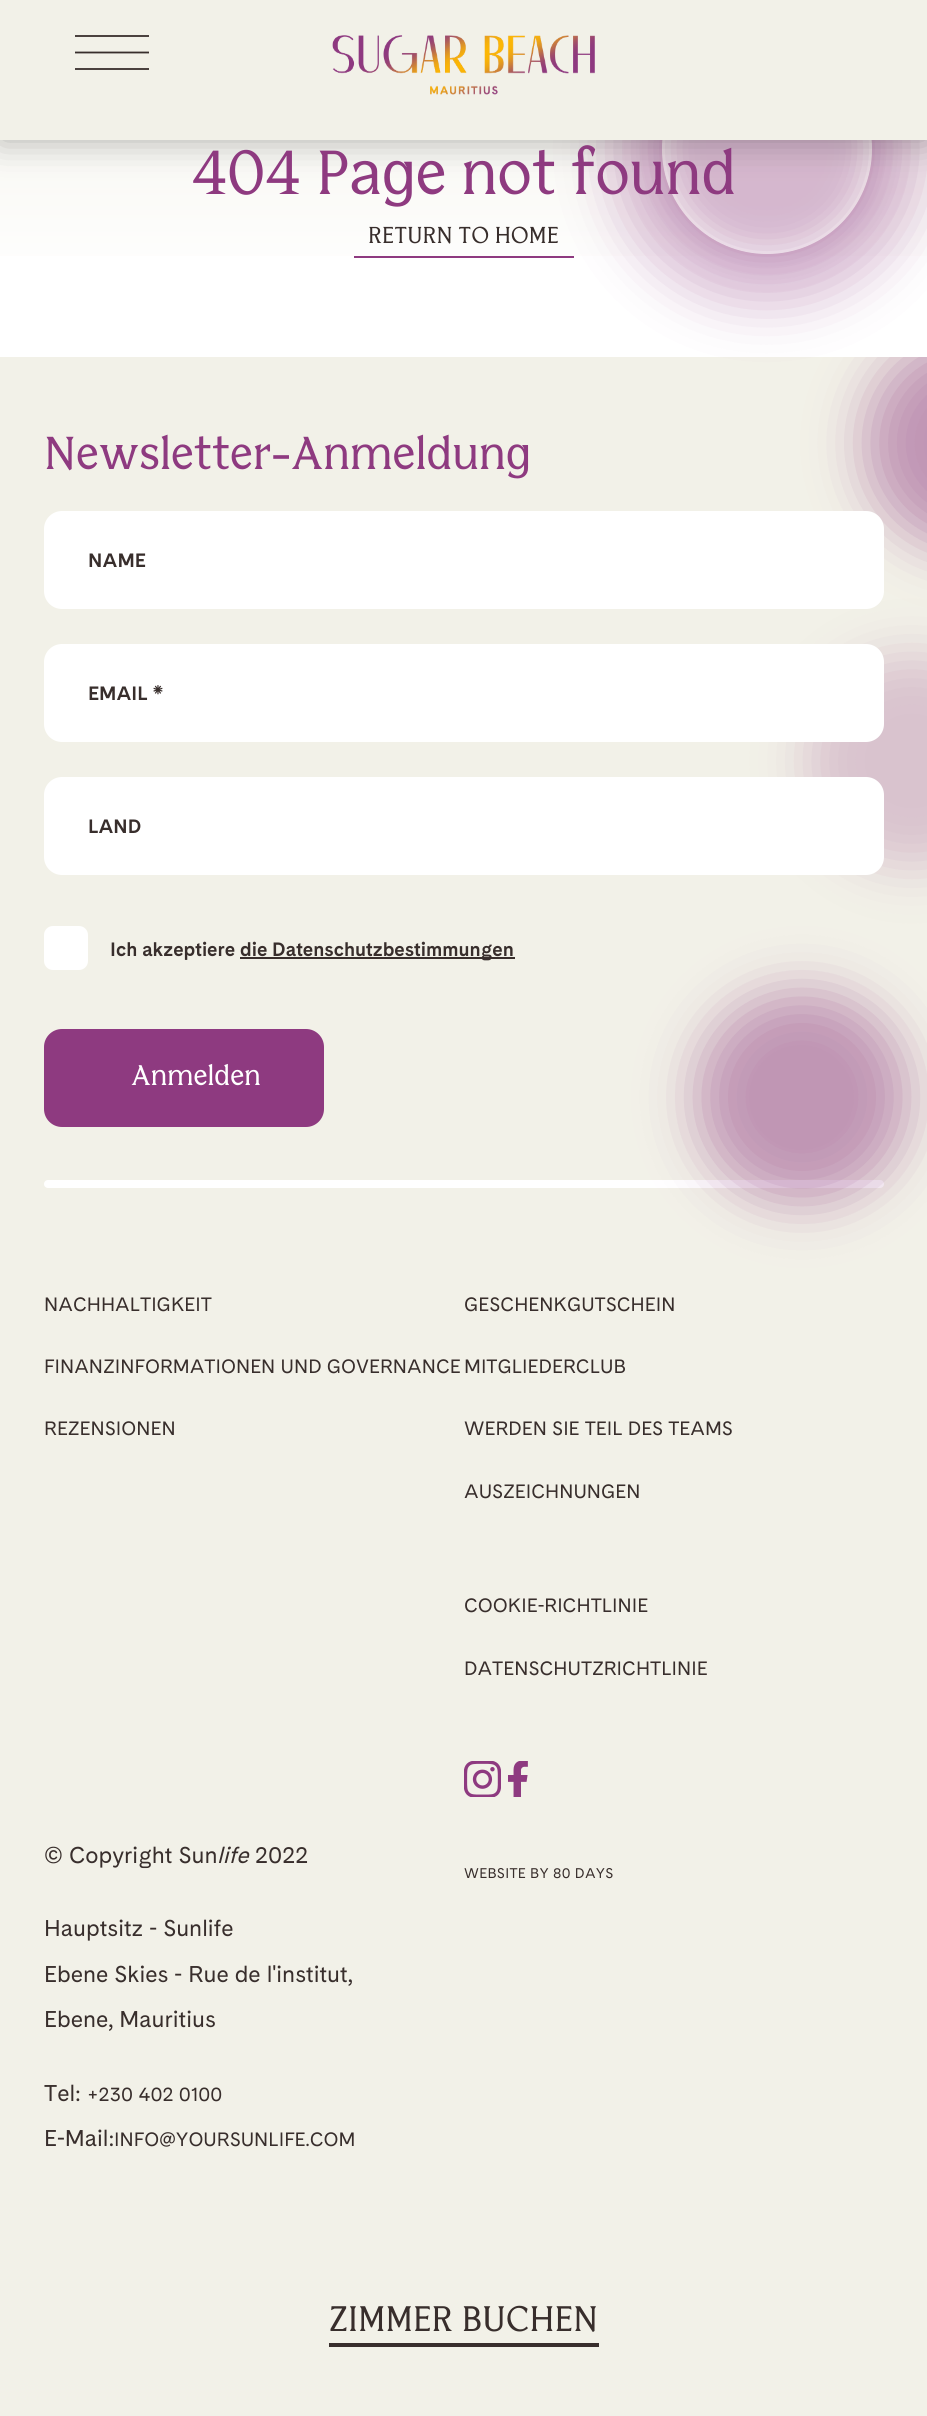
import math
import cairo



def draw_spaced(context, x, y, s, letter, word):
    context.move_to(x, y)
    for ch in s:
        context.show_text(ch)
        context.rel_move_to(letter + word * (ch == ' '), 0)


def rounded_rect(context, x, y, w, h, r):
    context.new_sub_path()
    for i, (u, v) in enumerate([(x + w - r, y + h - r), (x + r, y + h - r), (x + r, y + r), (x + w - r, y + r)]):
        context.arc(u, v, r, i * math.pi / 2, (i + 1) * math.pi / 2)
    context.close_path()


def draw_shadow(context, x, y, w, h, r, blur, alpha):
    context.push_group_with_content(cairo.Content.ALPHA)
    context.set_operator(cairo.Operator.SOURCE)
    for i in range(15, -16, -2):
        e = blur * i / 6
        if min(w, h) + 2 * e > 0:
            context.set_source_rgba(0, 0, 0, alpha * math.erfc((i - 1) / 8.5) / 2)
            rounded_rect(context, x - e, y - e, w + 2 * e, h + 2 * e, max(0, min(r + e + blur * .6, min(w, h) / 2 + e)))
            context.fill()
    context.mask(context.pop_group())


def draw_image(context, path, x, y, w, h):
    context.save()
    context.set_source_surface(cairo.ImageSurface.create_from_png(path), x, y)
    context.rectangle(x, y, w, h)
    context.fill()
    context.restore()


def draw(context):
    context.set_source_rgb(1, 1, 1)
    context.paint()
    gradient = cairo.LinearGradient(464, 287, 464, 0)
    gradient.add_color_stop_rgba(0, 1, 1, 1, 1)
    gradient.add_color_stop_rgba(1, 242 / 255, 241 / 255, 232 / 255, 1)
    context.set_source(gradient)
    context.rectangle(0, 140, 927, 116)
    context.fill()
    context.set_source_rgb(142 / 255, 58 / 255, 128 / 255)
    context.rectangle(354, 256, 220, 2)
    context.fill()
    context.set_source_rgb(242 / 255, 241 / 255, 232 / 255)
    context.rectangle(0, 357, 927, 2059)
    context.fill()
    context.save()
    context.set_fill_rule(cairo.FillRule.EVEN_ODD)
    context.new_path()
    context.move_to(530, 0)
    context.line_to(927, 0)
    context.line_to(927, 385)
    context.line_to(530, 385)
    context.close_path()
    context.move_to(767, 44)
    context.curve_to(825, 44, 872, 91, 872, 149)
    context.curve_to(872, 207, 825, 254, 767, 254)
    context.curve_to(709, 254, 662, 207, 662, 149)
    context.curve_to(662, 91, 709, 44, 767, 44)
    context.close_path()
    context.clip()
    context.set_source_rgb(142 / 255, 58 / 255, 128 / 255)
    draw_shadow(context, 609, -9, 315, 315, 157.5, 26, 0.35)
    context.restore()
    context.set_source_rgb(142 / 255, 58 / 255, 128 / 255)
    draw_shadow(context, 662, 44, 210, 210, 105, 17.5, 0.35)
    context.save()
    context.rectangle(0, 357, 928, 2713)
    context.clip()
    context.set_source_rgb(192 / 255, 149 / 255, 180 / 255)
    draw_shadow(context, 866, 338, 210, 210, 105, 26.5, 1)
    context.restore()
    context.set_source_rgb(217 / 255, 195 / 255, 206 / 255)
    draw_shadow(context, 807, 656, 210, 210, 105, 26.5, 1)
    context.set_source_rgb(1, 1, 1)
    rounded_rect(context, 44, 511, 840, 98, 18)
    context.fill()
    rounded_rect(context, 44, 644, 840, 98, 18)
    context.fill()
    rounded_rect(context, 44, 777, 840, 98, 18)
    context.fill()
    rounded_rect(context, 44, 926, 44, 44, 9)
    context.fill()
    context.set_source_rgb(56 / 255, 46 / 255, 44 / 255)
    context.rectangle(240, 957, 275, 2)
    context.fill()
    context.set_source_rgb(142 / 255, 58 / 255, 128 / 255)
    rounded_rect(context, 44, 1029, 280, 98, 18)
    context.fill()
    context.set_source_rgb(1, 1, 1)
    rounded_rect(context, 44, 1180, 840, 8, 4)
    context.fill()
    draw_image(context, "images/1.png", 464, 1761, 37, 36)
    draw_image(context, "images/2.png", 508, 1761, 20, 36)
    context.set_source_rgb(142 / 255, 58 / 255, 128 / 255)
    draw_shadow(context, 697, 992, 210, 210, 105, 26.5, 0.5)
    context.set_source_rgb(192 / 255, 150 / 255, 180 / 255)
    context.new_path()
    context.move_to(799, 1045)
    context.curve_to(828, 1044, 853, 1067, 854, 1096)
    context.curve_to(855, 1124, 832, 1149, 803, 1150)
    context.curve_to(774, 1151, 750, 1128, 749, 1099)
    context.curve_to(748, 1070, 770, 1046, 799, 1045)
    context.close_path()
    context.fill()
    context.set_source_rgb(0, 0, 0)
    draw_shadow(context, 0, 0, 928, 140, 0, 17.5, 0.3)
    context.set_source_rgb(242 / 255, 241 / 255, 232 / 255)
    context.rectangle(0, 0, 927, 140)
    context.fill()
    context.set_source_rgb(75 / 255, 66 / 255, 63 / 255)
    context.rectangle(75, 35, 74, 2)
    context.fill()
    context.new_path()
    context.move_to(75, 52.5)
    context.line_to(149, 52.5)
    context.set_source_rgb(56 / 255, 46 / 255, 44 / 255)
    context.set_line_width(1.8)
    context.stroke()
    context.set_source_rgb(75 / 255, 66 / 255, 63 / 255)
    context.rectangle(75, 68, 74, 2)
    context.fill()
    draw_image(context, "images/3.png", 332, 35, 263, 60)
    context.set_source_rgb(56 / 255, 46 / 255, 44 / 255)
    context.rectangle(329, 2343, 270, 4)
    context.fill()
    context.select_font_face("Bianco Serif")
    context.set_font_size(61.25)
    context.set_source_rgb(142 / 255, 58 / 255, 128 / 255)
    context.move_to(191, 194)
    context.show_text("404 Page not found")
    context.set_font_size(22.75)
    context.set_source_rgb(56 / 255, 46 / 255, 44 / 255)
    context.move_to(368, 243)
    context.show_text("RETURN TO HOME")
    context.set_font_size(45.5)
    context.set_source_rgb(142 / 255, 58 / 255, 128 / 255)
    context.move_to(44, 469)
    context.show_text("Newsletter-Anmeldung")
    context.select_font_face("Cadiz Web", cairo.FontSlant.NORMAL, cairo.FontWeight.BOLD)
    context.set_font_size(19.25)
    context.set_source_rgb(56 / 255, 46 / 255, 44 / 255)
    context.move_to(88, 567)
    context.show_text("NAME")
    context.move_to(88, 700)
    context.show_text("EMAIL *")
    context.move_to(88, 833)
    context.show_text("LAND")
    context.move_to(110, 956)
    context.show_text("Ich akzeptiere")
    context.move_to(240, 956)
    context.show_text("die Datenschutzbestimmungen")
    context.select_font_face("Bianco Serif")
    context.set_font_size(28)
    context.set_source_rgb(1, 1, 1)
    context.move_to(131, 1085)
    context.show_text("Anmelden")
    context.select_font_face("Cadiz Web")
    context.set_font_size(19.25)
    context.set_source_rgb(56 / 255, 46 / 255, 44 / 255)
    context.move_to(44, 1311)
    context.show_text("NACHHALTIGKEIT")
    context.move_to(44, 1373)
    context.show_text("FINANZINFORMATIONEN UND GOVERNANCE")
    context.move_to(44, 1435)
    context.show_text("REZENSIONEN")
    context.move_to(464, 1311)
    context.show_text("GESCHENKGUTSCHEIN")
    context.move_to(464, 1373)
    context.show_text("MITGLIEDERCLUB")
    context.move_to(464, 1435)
    context.show_text("WERDEN SIE TEIL DES TEAMS")
    context.move_to(464, 1498)
    context.show_text("AUSZEICHNUNGEN")
    context.move_to(464, 1612)
    context.show_text("COOKIE-RICHTLINIE")
    context.move_to(464, 1675)
    context.show_text("DATENSCHUTZRICHTLINIE")
    context.set_font_size(22.75)
    context.move_to(44, 1863)
    context.show_text("© Copyright Sun")
    context.select_font_face("Cadiz Web", cairo.FontSlant.ITALIC)
    context.move_to(217, 1863)
    context.show_text("life")
    context.select_font_face("Cadiz Web")
    context.move_to(255, 1863)
    context.show_text("2022")
    context.move_to(44, 1936)
    context.show_text("Hauptsitz - Sunlife")
    context.move_to(44, 1982)
    context.show_text("Ebene Skies - Rue de l'institut,")
    context.move_to(44, 2027)
    context.show_text("Ebene, Mauritius")
    context.move_to(44, 2101)
    context.show_text("Tel:")
    context.set_font_size(19.25)
    context.move_to(87, 2101)
    context.show_text("+230 402 0100")
    context.set_font_size(22.75)
    context.move_to(44, 2146)
    context.show_text("E-Mail:")
    context.set_font_size(19.25)
    context.move_to(114, 2146)
    context.show_text("INFO@YOURSUNLIFE.COM")
    context.set_font_size(14)
    draw_spaced(context, 464, 1878, "WEBSITE BY 80 DAYS", 0.3, 0)
    context.select_font_face("Bianco Serif")
    context.set_font_size(35)
    context.move_to(329, 2331)
    context.show_text("ZIMMER BUCHEN")


surface = cairo.ImageSurface(cairo.Format.RGB24, 927, 2416)
context = cairo.Context(surface)
options = cairo.FontOptions()
options.set_hint_metrics(cairo.HintMetrics.OFF)
options.set_hint_style(cairo.HintStyle.NONE)
context.set_font_options(options)
context.set_miter_limit(4)
draw(context)
surface.write_to_png("out.png")
